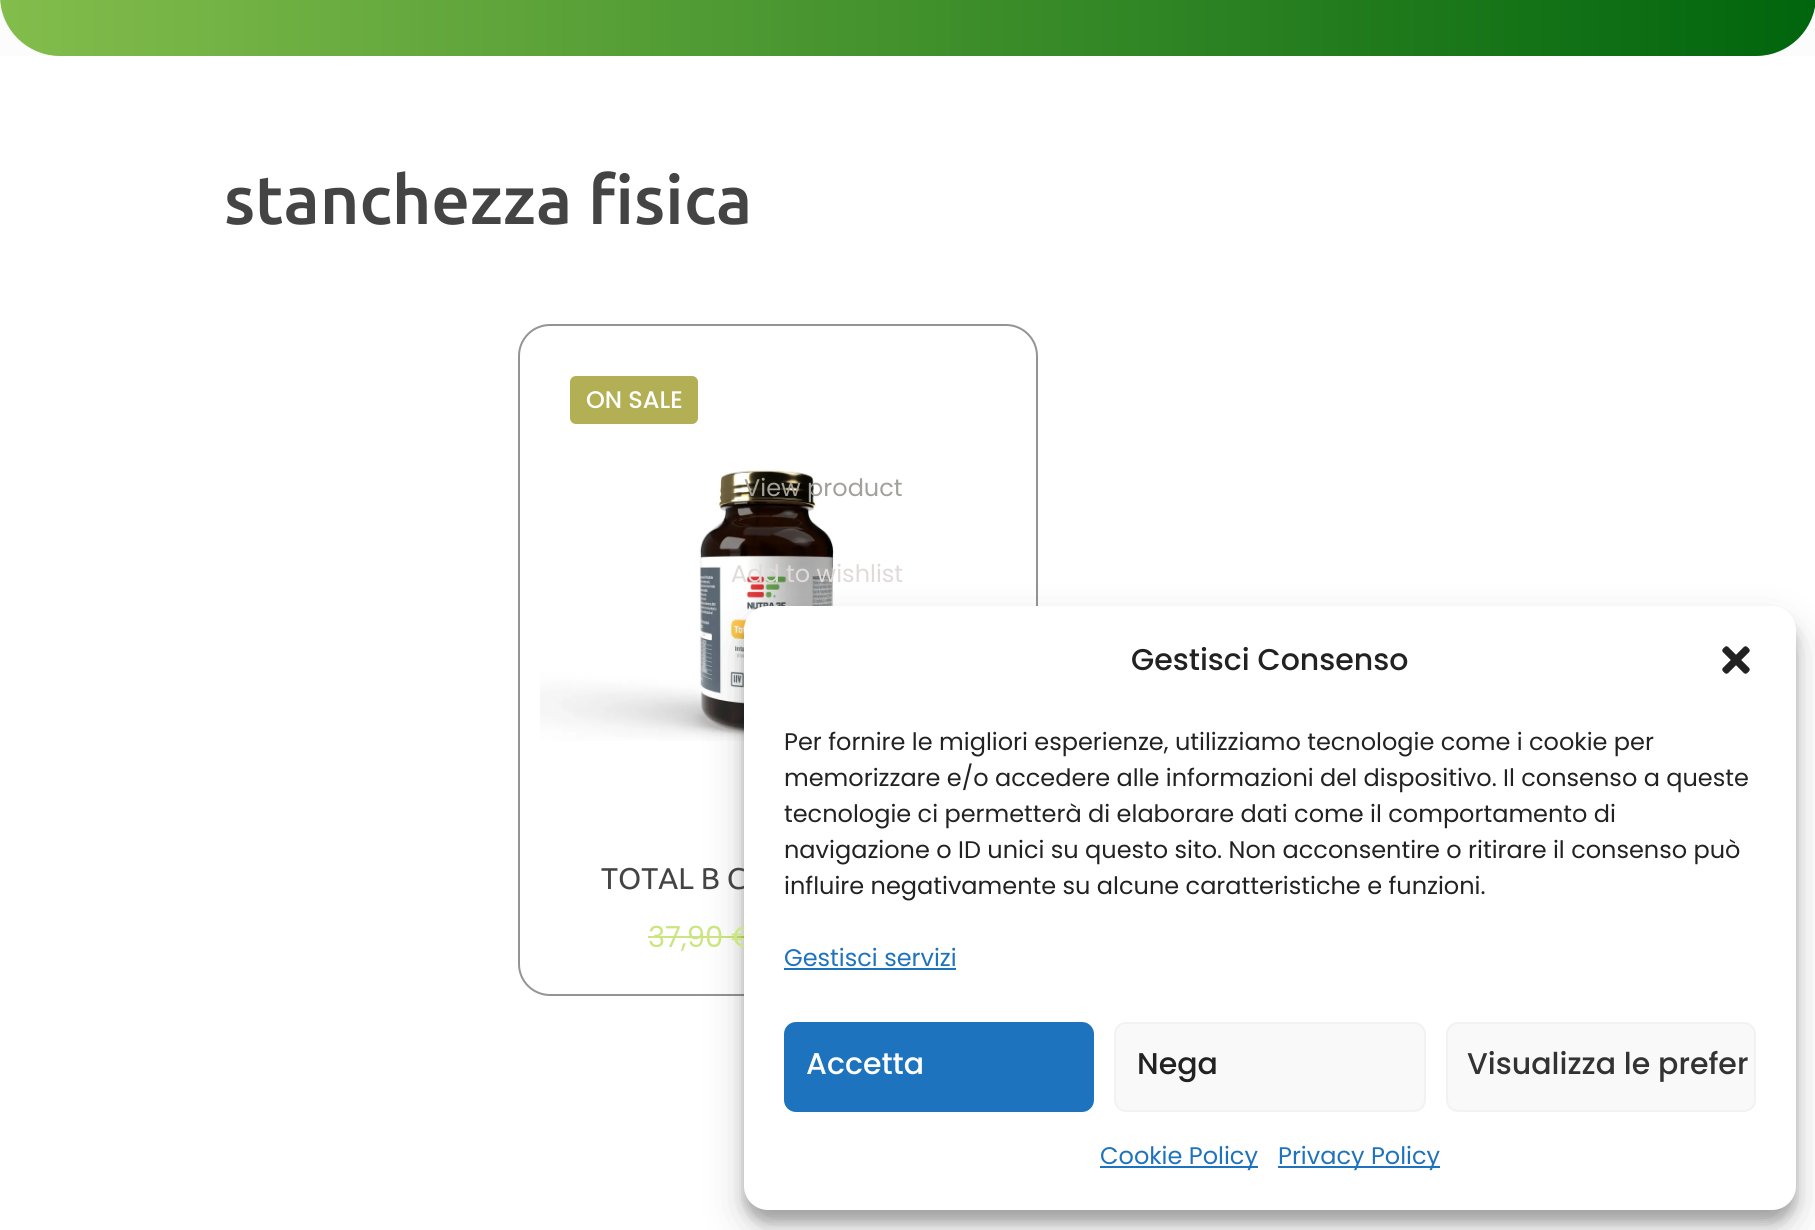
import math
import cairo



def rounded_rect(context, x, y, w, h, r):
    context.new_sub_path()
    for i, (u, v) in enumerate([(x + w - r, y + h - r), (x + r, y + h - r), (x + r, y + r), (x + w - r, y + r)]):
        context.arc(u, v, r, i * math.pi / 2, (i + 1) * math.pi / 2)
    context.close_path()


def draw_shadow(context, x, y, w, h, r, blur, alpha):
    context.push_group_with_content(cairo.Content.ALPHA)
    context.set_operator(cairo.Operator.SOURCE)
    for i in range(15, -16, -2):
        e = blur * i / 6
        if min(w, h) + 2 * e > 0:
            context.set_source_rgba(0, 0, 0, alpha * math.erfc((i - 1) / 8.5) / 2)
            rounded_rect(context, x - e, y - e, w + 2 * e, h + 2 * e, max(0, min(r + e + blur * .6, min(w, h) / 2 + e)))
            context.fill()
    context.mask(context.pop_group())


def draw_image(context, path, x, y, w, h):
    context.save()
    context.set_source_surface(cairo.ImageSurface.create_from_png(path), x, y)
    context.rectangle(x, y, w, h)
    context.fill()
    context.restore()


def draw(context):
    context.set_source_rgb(252 / 255, 252 / 255, 252 / 255)
    context.paint()
    gradient = cairo.LinearGradient(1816, -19, 0, -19)
    gradient.add_color_stop_rgba(0, 0, 101 / 255, 13 / 255, 1)
    gradient.add_color_stop_rgba(1, 131 / 255, 189 / 255, 76 / 255, 1)
    context.set_source(gradient)
    rounded_rect(context, 0, -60, 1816, 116, 60)
    context.fill()
    context.set_source_rgb(1, 1, 1)
    context.rectangle(0, 56, 1815, 1174)
    context.fill()
    rounded_rect(context, 519, 325, 518, 670, 31)
    context.set_source_rgb(148 / 255, 148 / 255, 148 / 255)
    context.stroke()
    context.set_source_rgb(179 / 255, 175 / 255, 84 / 255)
    rounded_rect(context, 570, 376, 128, 48, 6)
    context.fill()
    draw_image(context, "images/1.png", 540, 469, 476, 272)
    context.set_source_rgb(203 / 255, 230 / 255, 129 / 255)
    context.rectangle(648, 936, 96, 2)
    context.fill()
    context.set_source_rgb(0, 0, 0)
    draw_shadow(context, 744, 618, 1052, 604, 24, 6, 0.23)
    draw_shadow(context, 744, 626, 1052, 604, 24, 20, 0.19)
    context.select_font_face("Ubuntu Medium")
    context.set_font_size(68)
    context.set_source_rgb(68 / 255, 68 / 255, 68 / 255)
    context.move_to(224, 224)
    context.show_text("stanchezza fisica")
    context.select_font_face("Poppins Medium")
    context.set_font_size(24)
    context.set_source_rgb(1, 1, 1)
    context.move_to(586, 408)
    context.show_text("ON SALE")
    context.select_font_face("Poppins")
    context.set_source_rgb(162 / 255, 160 / 255, 155 / 255)
    context.move_to(744, 496)
    context.show_text("View product")
    context.set_source_rgb(224 / 255, 219 / 255, 217 / 255)
    context.move_to(731, 582)
    context.show_text("Add to wishlist")
    context.select_font_face("Ubuntu")
    context.set_font_size(30)
    context.set_source_rgb(68 / 255, 68 / 255, 68 / 255)
    context.move_to(601, 889)
    context.show_text("TOTAL B C")
    context.select_font_face("Poppins")
    context.set_font_size(29)
    context.set_source_rgb(203 / 255, 230 / 255, 129 / 255)
    context.move_to(648, 947)
    context.show_text("37,90 €")
    context.set_source_rgb(1, 1, 1)
    rounded_rect(context, 744, 606, 1052, 604, 24)
    context.fill()
    context.select_font_face("Poppins Medium")
    context.set_font_size(30)
    context.set_source_rgb(34 / 255, 34 / 255, 34 / 255)
    context.move_to(1131, 670)
    context.show_text("Gestisci Consenso")
    draw_image(context, "images/2.png", 1722, 646, 28, 28)
    context.select_font_face("Poppins")
    context.set_font_size(24)
    context.move_to(784, 750)
    context.show_text("Per fornire le migliori esperienze, utilizziamo tecnologie come i cookie per")
    context.move_to(784, 786)
    context.show_text("memorizzare e/o accedere alle informazioni del dispositivo. Il consenso a queste")
    context.move_to(784, 822)
    context.show_text("tecnologie ci permetterà di elaborare dati come il comportamento di")
    context.move_to(784, 858)
    context.show_text("navigazione o ID unici su questo sito. Non acconsentire o ritirare il consenso può")
    context.move_to(784, 894)
    context.show_text("influire negativamente su alcune caratteristiche e funzioni.")
    context.set_source_rgb(30 / 255, 115 / 255, 190 / 255)
    context.move_to(784, 966)
    context.show_text("Gestisci servizi")
    context.rectangle(784, 968, 172, 2)
    context.fill()
    rounded_rect(context, 785, 1023, 308, 88, 11)
    context.fill_preserve()
    context.stroke()
    context.select_font_face("Poppins Medium")
    context.set_font_size(30)
    context.set_source_rgb(1, 1, 1)
    context.move_to(806, 1074)
    context.show_text("Accetta")
    context.set_source_rgb(249 / 255, 249 / 255, 249 / 255)
    rounded_rect(context, 1115, 1023, 310, 88, 11)
    context.fill_preserve()
    context.set_source_rgb(242 / 255, 242 / 255, 242 / 255)
    context.stroke()
    context.set_source_rgb(34 / 255, 34 / 255, 34 / 255)
    context.move_to(1137, 1074)
    context.show_text("Nega")
    context.set_source_rgb(249 / 255, 249 / 255, 249 / 255)
    rounded_rect(context, 1447, 1023, 308, 88, 11)
    context.fill_preserve()
    context.set_source_rgb(242 / 255, 242 / 255, 242 / 255)
    context.stroke()
    context.set_source_rgb(51 / 255, 51 / 255, 51 / 255)
    context.move_to(1467, 1074)
    context.show_text("Visualizza le prefer")
    context.set_source_rgb(30 / 255, 115 / 255, 190 / 255)
    context.rectangle(1100, 1166, 158, 2)
    context.fill()
    context.select_font_face("Poppins")
    context.set_font_size(24)
    context.move_to(1100, 1164)
    context.show_text("Cookie Policy")
    context.rectangle(1278, 1166, 162, 2)
    context.fill()
    context.move_to(1278, 1164)
    context.show_text("Privacy Policy")


surface = cairo.ImageSurface(cairo.Format.RGB24, 1815, 1230)
context = cairo.Context(surface)
options = cairo.FontOptions()
options.set_hint_metrics(cairo.HintMetrics.OFF)
options.set_hint_style(cairo.HintStyle.NONE)
context.set_font_options(options)
context.set_miter_limit(4)
draw(context)
surface.write_to_png("out.png")
